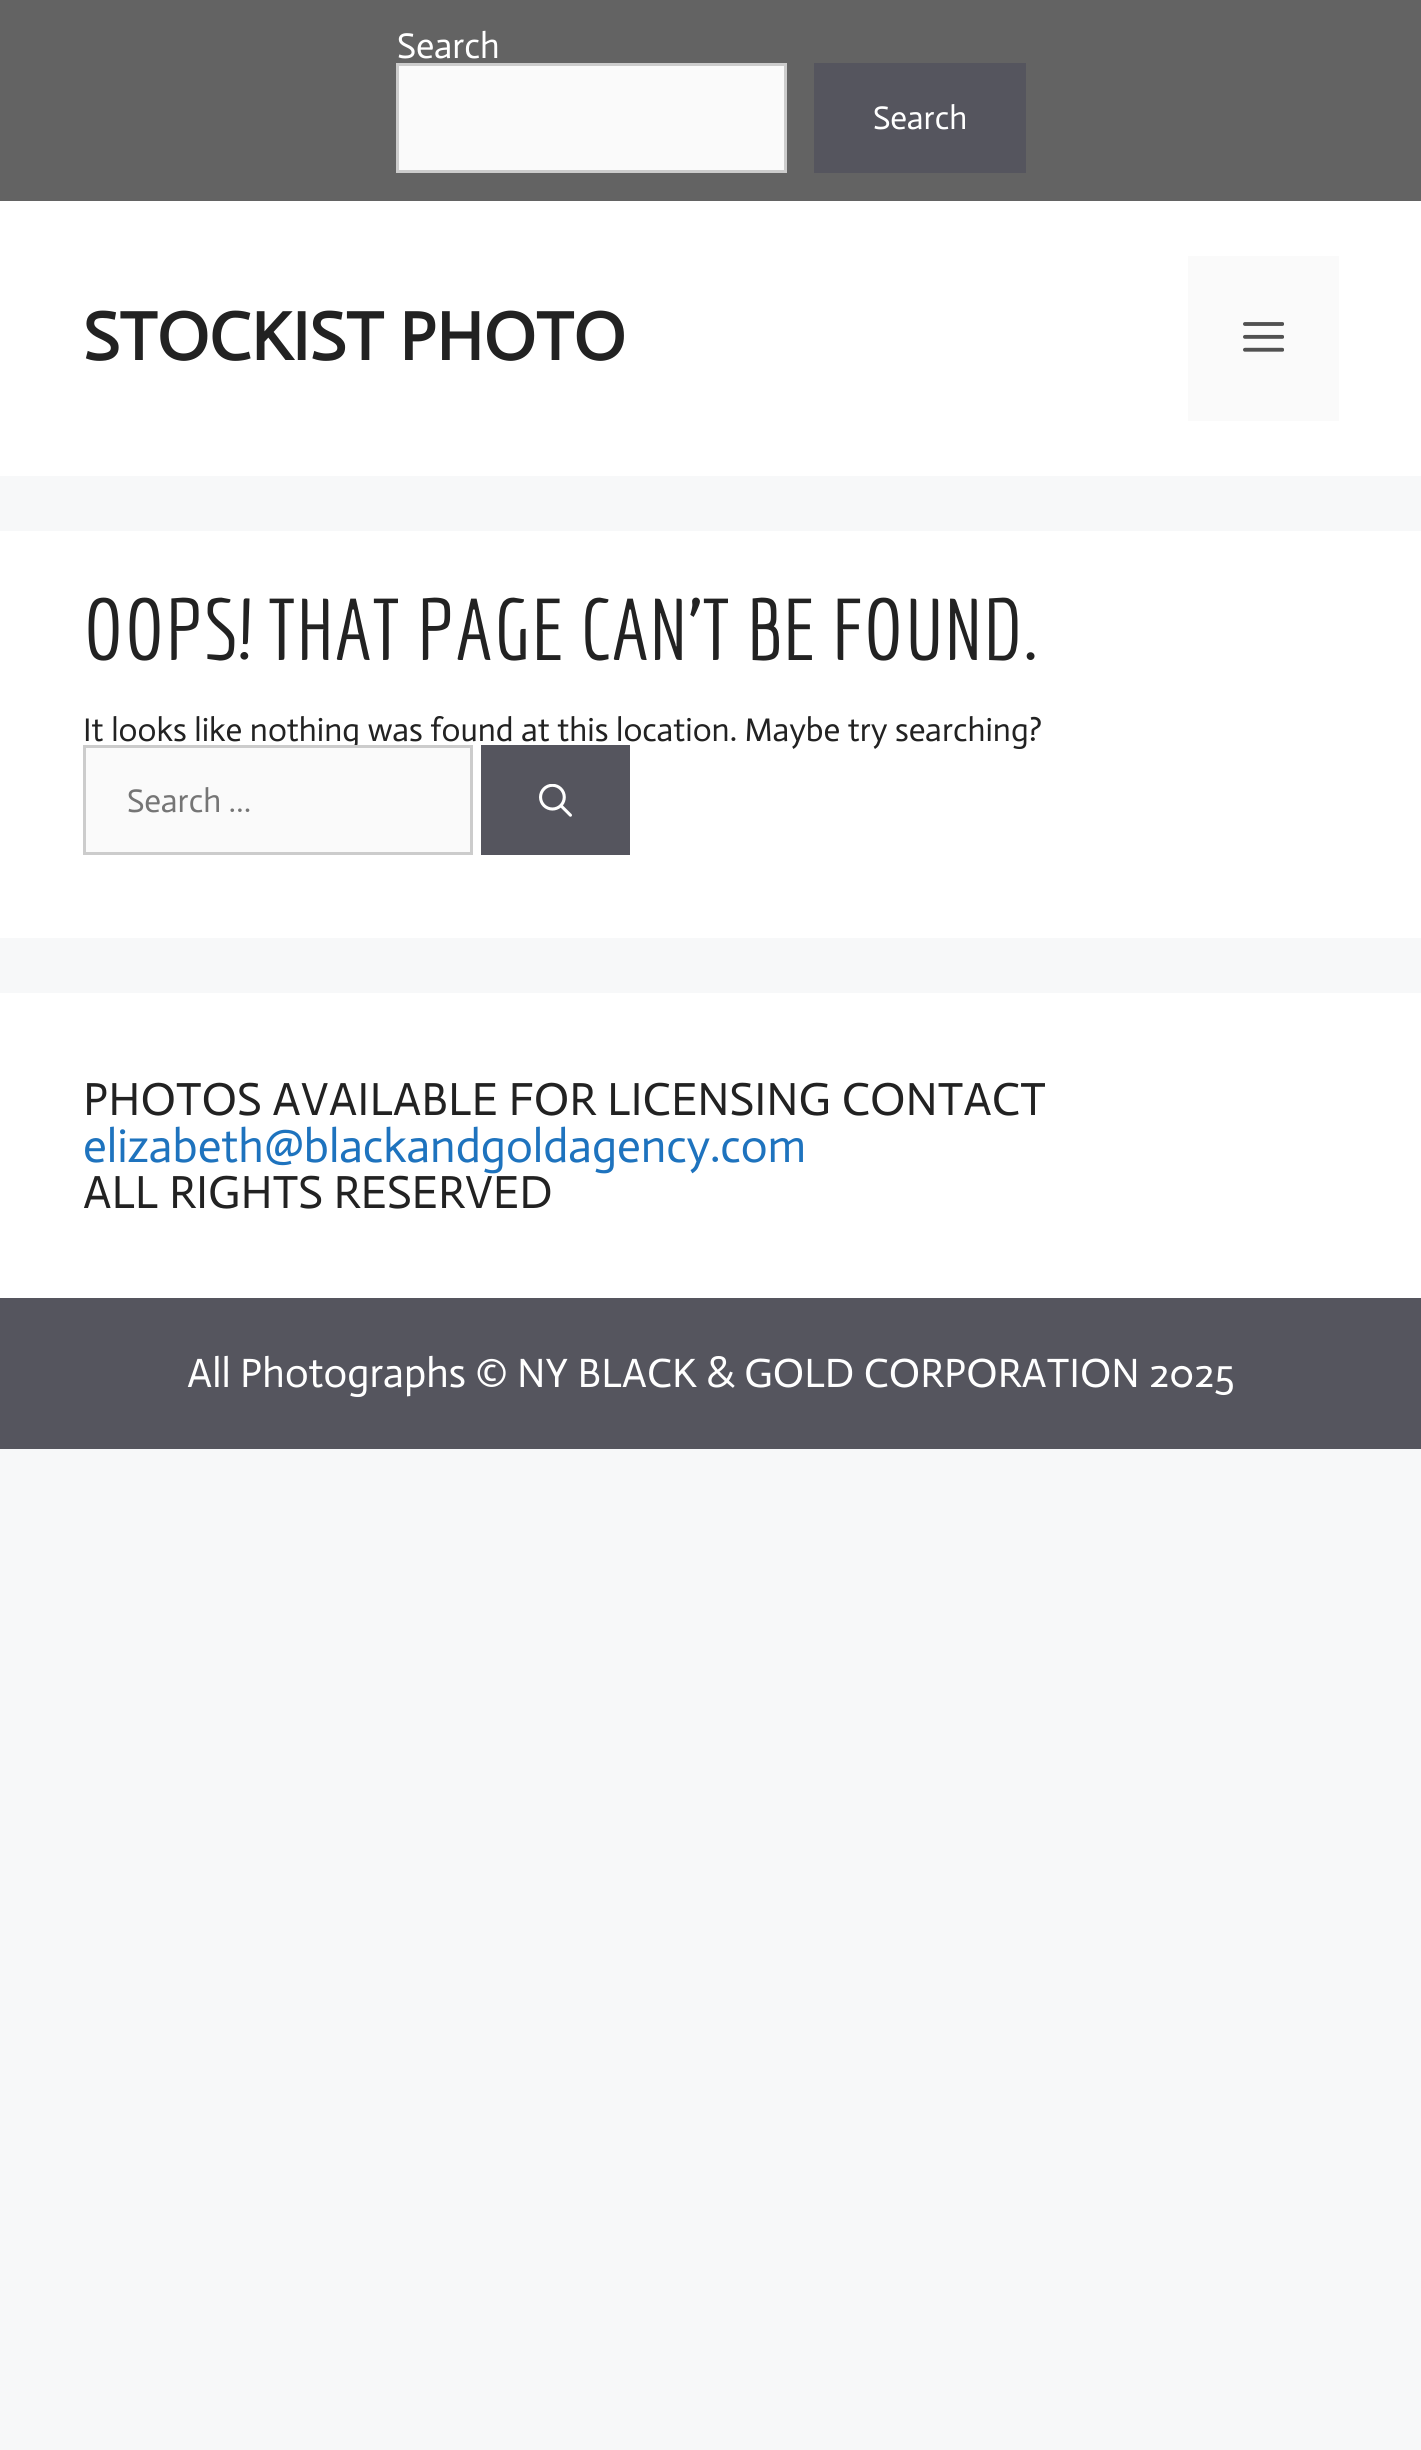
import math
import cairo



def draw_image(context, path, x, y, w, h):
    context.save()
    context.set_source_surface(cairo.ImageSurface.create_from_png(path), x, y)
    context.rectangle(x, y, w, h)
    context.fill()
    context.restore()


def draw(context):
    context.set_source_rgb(247 / 255, 248 / 255, 249 / 255)
    context.paint()
    context.set_source_rgb(99 / 255, 99 / 255, 99 / 255)
    context.rectangle(0, 0, 1421, 201)
    context.fill()
    context.set_source_rgb(250 / 255, 250 / 255, 250 / 255)
    context.rectangle(397.5, 64.5, 388, 107)
    context.fill_preserve()
    context.set_source_rgb(204 / 255, 204 / 255, 204 / 255)
    context.set_line_width(3)
    context.stroke()
    context.set_source_rgb(85 / 255, 85 / 255, 94 / 255)
    context.rectangle(814, 63, 212, 110)
    context.fill()
    context.set_source_rgb(1, 1, 1)
    context.rectangle(0, 201, 1421, 275)
    context.fill()
    context.set_source_rgb(250 / 255, 250 / 255, 250 / 255)
    context.rectangle(1188, 256, 151, 165)
    context.fill()
    draw_image(context, "images/1.png", 1243, 322, 41, 30)
    context.set_source_rgb(1, 1, 1)
    context.rectangle(0, 531, 1421, 407)
    context.fill()
    context.rectangle(0, 993, 1421, 305)
    context.fill()
    context.set_source_rgb(85 / 255, 85 / 255, 94 / 255)
    context.rectangle(0, 1298, 1421, 151)
    context.fill()
    context.select_font_face("Actor")
    context.set_font_size(36)
    context.set_source_rgb(1, 1, 1)
    context.move_to(397, 58)
    context.show_text("Search")
    context.set_font_size(33)
    context.move_to(873, 129)
    context.show_text("Search")
    context.select_font_face("Actor", cairo.FontSlant.NORMAL, cairo.FontWeight.BOLD)
    context.set_font_size(68.75)
    context.set_source_rgb(34 / 255, 34 / 255, 34 / 255)
    context.move_to(83, 360)
    context.show_text("STOCKIST PHOTO")
    context.select_font_face("Economica")
    context.set_font_size(85.25)
    context.move_to(83, 660)
    context.show_text("OOPS! THAT PAGE CAN’T BE FOUND.")
    context.select_font_face("Actor")
    context.set_font_size(33)
    context.move_to(83, 741)
    context.show_text("It looks like nothing was found at this location. Maybe try searching?")
    context.set_source_rgb(250 / 255, 250 / 255, 250 / 255)
    context.rectangle(84.5, 746.5, 387, 107)
    context.fill_preserve()
    context.set_source_rgb(204 / 255, 204 / 255, 204 / 255)
    context.stroke()
    context.set_source_rgb(117 / 255, 117 / 255, 117 / 255)
    context.move_to(127, 812)
    context.show_text("Search …")
    context.set_source_rgb(85 / 255, 85 / 255, 94 / 255)
    context.rectangle(481, 745, 149, 110)
    context.fill()
    draw_image(context, "images/2.png", 539, 784, 33, 33)
    context.set_font_size(46.75)
    context.set_source_rgb(34 / 255, 34 / 255, 34 / 255)
    context.move_to(83, 1115)
    context.show_text("PHOTOS AVAILABLE FOR LICENSING CONTACT")
    context.set_source_rgb(30 / 255, 115 / 255, 190 / 255)
    context.move_to(83, 1162)
    context.show_text("elizabeth@blackandgoldagency.com")
    context.set_source_rgb(34 / 255, 34 / 255, 34 / 255)
    context.move_to(83, 1208)
    context.show_text("ALL RIGHTS RESERVED")
    context.set_font_size(41.25)
    context.set_source_rgb(1, 1, 1)
    context.move_to(187, 1387)
    context.show_text("All Photographs © NY BLACK & GOLD CORPORATION 2025")


surface = cairo.ImageSurface(cairo.Format.RGB24, 1421, 2450)
context = cairo.Context(surface)
options = cairo.FontOptions()
options.set_hint_metrics(cairo.HintMetrics.OFF)
options.set_hint_style(cairo.HintStyle.NONE)
context.set_font_options(options)
context.set_miter_limit(4)
draw(context)
surface.write_to_png("out.png")
